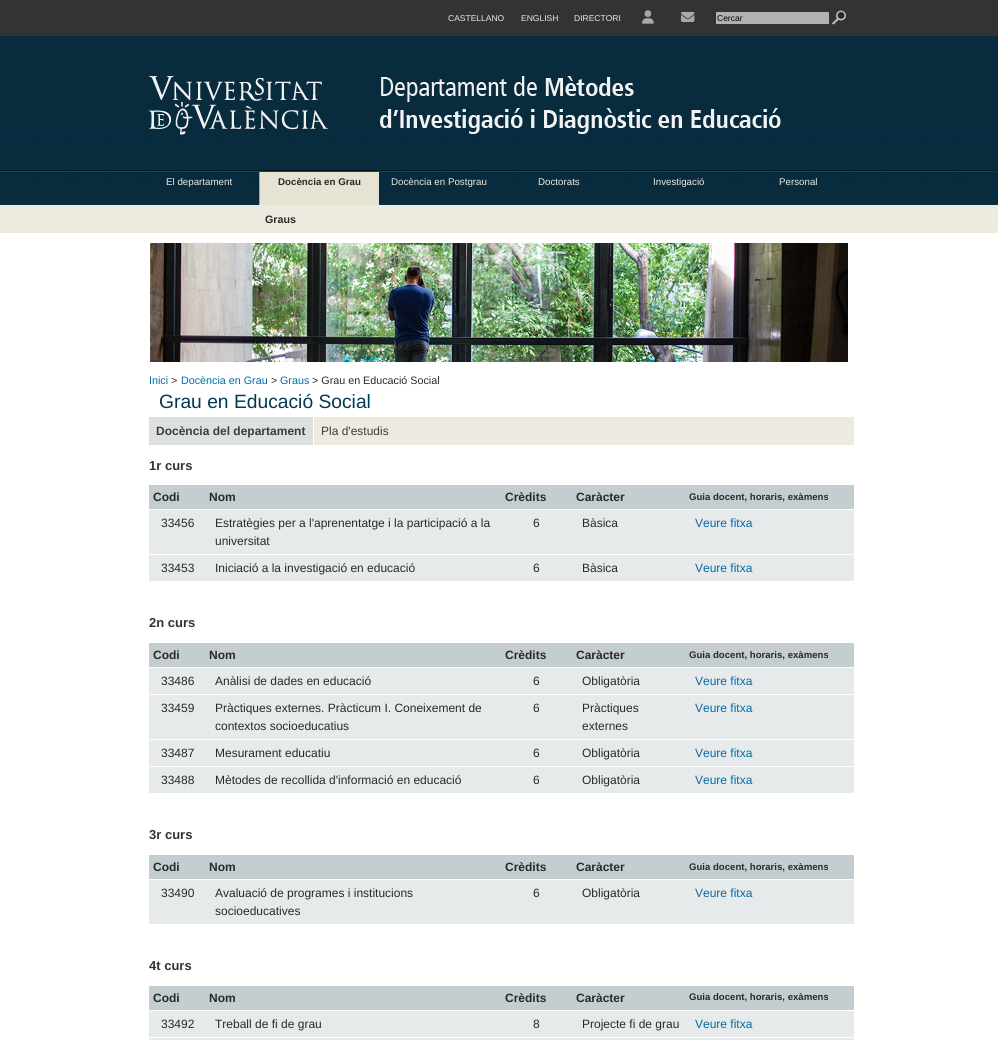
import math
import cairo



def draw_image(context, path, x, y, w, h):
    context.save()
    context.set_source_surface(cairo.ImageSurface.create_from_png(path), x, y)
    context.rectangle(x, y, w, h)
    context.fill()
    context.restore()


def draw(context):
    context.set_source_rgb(1, 1, 1)
    context.paint()
    draw_image(context, "images/1.png", 0, 0, 998, 233)
    draw_image(context, "images/2.png", 642, 10, 12, 14)
    draw_image(context, "images/3.png", 681, 11, 14, 11)
    context.set_source_rgb(177 / 255, 177 / 255, 177 / 255)
    context.rectangle(716, 12, 113, 12)
    context.fill()
    draw_image(context, "images/4.png", 832, 10, 15, 15)
    context.set_source_rgb(6 / 255, 26 / 255, 37 / 255)
    context.rectangle(139, 170, 720, 1)
    context.fill()
    draw_image(context, "images/5.png", 148, 76, 633, 59)
    context.set_source_rgb(230 / 255, 227 / 255, 210 / 255)
    context.rectangle(260, 172, 119, 33)
    context.fill()
    context.set_source_rgb(166 / 255, 166 / 255, 156 / 255)
    context.rectangle(259, 172, 1, 33)
    context.fill()
    draw_image(context, "images/6.png", 150, 243, 698, 119)
    context.set_source_rgb(237 / 255, 234 / 255, 223 / 255)
    context.rectangle(314, 417, 540, 28)
    context.fill()
    context.set_source_rgb(220 / 255, 224 / 255, 225 / 255)
    context.rectangle(149, 417, 164, 28)
    context.fill()
    context.set_source_rgb(196 / 255, 205 / 255, 208 / 255)
    context.rectangle(149, 485, 705, 24)
    context.fill()
    context.set_source_rgb(230 / 255, 234 / 255, 235 / 255)
    context.rectangle(149, 510, 705, 44)
    context.fill()
    context.rectangle(149, 555, 705, 26)
    context.fill()
    context.set_source_rgb(196 / 255, 205 / 255, 208 / 255)
    context.rectangle(149, 643, 705, 24)
    context.fill()
    context.set_source_rgb(230 / 255, 234 / 255, 235 / 255)
    context.rectangle(149, 668, 705, 26)
    context.fill()
    context.rectangle(149, 695, 705, 44)
    context.fill()
    context.rectangle(149, 740, 705, 26)
    context.fill()
    context.rectangle(149, 767, 705, 26)
    context.fill()
    context.set_source_rgb(196 / 255, 205 / 255, 208 / 255)
    context.rectangle(149, 855, 705, 24)
    context.fill()
    context.set_source_rgb(230 / 255, 234 / 255, 235 / 255)
    context.rectangle(149, 880, 705, 44)
    context.fill()
    context.set_source_rgb(196 / 255, 205 / 255, 208 / 255)
    context.rectangle(149, 986, 705, 24)
    context.fill()
    context.set_source_rgb(230 / 255, 234 / 255, 235 / 255)
    context.rectangle(149, 1011, 705, 26)
    context.fill()
    context.rectangle(149, 1038, 705, 2)
    context.fill()
    context.select_font_face("Liberation Sans")
    context.set_font_size(8.5)
    context.set_source_rgb(237 / 255, 234 / 255, 223 / 255)
    context.move_to(448, 21)
    context.show_text("CASTELLANO")
    context.move_to(521, 21)
    context.show_text("ENGLISH")
    context.move_to(574, 21)
    context.show_text("DIRECTORI")
    context.set_source_rgb(0, 0, 0)
    context.move_to(717, 21)
    context.show_text("Cercar")
    context.set_font_size(9.75)
    context.set_source_rgb(237 / 255, 234 / 255, 223 / 255)
    context.move_to(166, 185)
    context.show_text("El departament")
    context.select_font_face("Liberation Sans", cairo.FontSlant.NORMAL, cairo.FontWeight.BOLD)
    context.set_source_rgb(41 / 255, 42 / 255, 37 / 255)
    context.move_to(278, 185)
    context.show_text("Docència en Grau")
    context.select_font_face("Liberation Sans")
    context.set_source_rgb(237 / 255, 234 / 255, 223 / 255)
    context.move_to(391, 185)
    context.show_text("Docència en Postgrau")
    context.move_to(538, 185)
    context.show_text("Doctorats")
    context.move_to(653, 185)
    context.show_text("Investigació")
    context.move_to(779, 185)
    context.show_text("Personal")
    context.select_font_face("Liberation Sans", cairo.FontSlant.NORMAL, cairo.FontWeight.BOLD)
    context.set_font_size(10.75)
    context.set_source_rgb(41 / 255, 42 / 255, 37 / 255)
    context.move_to(265, 223)
    context.show_text("Graus")
    context.select_font_face("Liberation Sans")
    context.set_source_rgb(1 / 255, 108 / 255, 162 / 255)
    context.move_to(149, 384)
    context.show_text("Inici")
    context.set_source_rgb(41 / 255, 42 / 255, 37 / 255)
    context.move_to(171, 384)
    context.show_text(">")
    context.set_source_rgb(1 / 255, 108 / 255, 162 / 255)
    context.move_to(181, 384)
    context.show_text("Docència en Grau")
    context.set_source_rgb(41 / 255, 42 / 255, 37 / 255)
    context.move_to(271, 384)
    context.show_text(">")
    context.set_source_rgb(1 / 255, 108 / 255, 162 / 255)
    context.move_to(280, 384)
    context.show_text("Graus")
    context.set_source_rgb(41 / 255, 42 / 255, 37 / 255)
    context.move_to(312, 384)
    context.show_text("> Grau en Educació Social")
    context.set_font_size(19.25)
    context.set_source_rgb(1 / 255, 57 / 255, 82 / 255)
    context.move_to(159, 408)
    context.show_text("Grau en Educació Social")
    context.select_font_face("Liberation Sans", cairo.FontSlant.NORMAL, cairo.FontWeight.BOLD)
    context.set_font_size(12)
    context.set_source_rgb(63 / 255, 60 / 255, 53 / 255)
    context.move_to(156, 435)
    context.show_text("Docència del departament")
    context.select_font_face("Liberation Sans")
    context.move_to(321, 435)
    context.show_text("Pla d'estudis")
    context.select_font_face("Liberation Sans", cairo.FontSlant.NORMAL, cairo.FontWeight.BOLD)
    context.set_font_size(13)
    context.set_source_rgb(51 / 255, 51 / 255, 51 / 255)
    context.move_to(149, 470)
    context.show_text("1r curs")
    context.set_font_size(12)
    context.set_source_rgb(41 / 255, 42 / 255, 37 / 255)
    context.move_to(153, 501)
    context.show_text("Codi")
    context.move_to(209, 501)
    context.show_text("Nom")
    context.move_to(505, 501)
    context.show_text("Crèdits")
    context.move_to(576, 501)
    context.show_text("Caràcter")
    context.set_font_size(9.6)
    context.move_to(689, 500)
    context.show_text("Guia docent, horaris, exàmens")
    context.select_font_face("Liberation Sans")
    context.set_font_size(12)
    context.move_to(161, 527)
    context.show_text("33456")
    context.move_to(215, 527)
    context.show_text("Estratègies per a l'aprenentatge i la participació a la")
    context.move_to(215, 545)
    context.show_text("universitat")
    context.move_to(533, 527)
    context.show_text("6")
    context.move_to(582, 527)
    context.show_text("Bàsica")
    context.set_source_rgb(1 / 255, 108 / 255, 162 / 255)
    context.move_to(695, 527)
    context.show_text("Veure fitxa")
    context.set_source_rgb(41 / 255, 42 / 255, 37 / 255)
    context.move_to(161, 572)
    context.show_text("33453")
    context.move_to(215, 572)
    context.show_text("Iniciació a la investigació en educació")
    context.move_to(533, 572)
    context.show_text("6")
    context.move_to(582, 572)
    context.show_text("Bàsica")
    context.set_source_rgb(1 / 255, 108 / 255, 162 / 255)
    context.move_to(695, 572)
    context.show_text("Veure fitxa")
    context.select_font_face("Liberation Sans", cairo.FontSlant.NORMAL, cairo.FontWeight.BOLD)
    context.set_font_size(13)
    context.set_source_rgb(51 / 255, 51 / 255, 51 / 255)
    context.move_to(149, 627)
    context.show_text("2n curs")
    context.set_font_size(12)
    context.set_source_rgb(41 / 255, 42 / 255, 37 / 255)
    context.move_to(153, 659)
    context.show_text("Codi")
    context.move_to(209, 659)
    context.show_text("Nom")
    context.move_to(505, 659)
    context.show_text("Crèdits")
    context.move_to(576, 659)
    context.show_text("Caràcter")
    context.set_font_size(9.6)
    context.move_to(689, 658)
    context.show_text("Guia docent, horaris, exàmens")
    context.select_font_face("Liberation Sans")
    context.set_font_size(12)
    context.move_to(161, 685)
    context.show_text("33486")
    context.move_to(215, 685)
    context.show_text("Anàlisi de dades en educació")
    context.move_to(533, 685)
    context.show_text("6")
    context.move_to(582, 685)
    context.show_text("Obligatòria")
    context.set_source_rgb(1 / 255, 108 / 255, 162 / 255)
    context.move_to(695, 685)
    context.show_text("Veure fitxa")
    context.set_source_rgb(41 / 255, 42 / 255, 37 / 255)
    context.move_to(161, 712)
    context.show_text("33459")
    context.move_to(215, 712)
    context.show_text("Pràctiques externes. Pràcticum I. Coneixement de")
    context.move_to(215, 730)
    context.show_text("contextos socioeducatius")
    context.move_to(533, 712)
    context.show_text("6")
    context.move_to(582, 712)
    context.show_text("Pràctiques")
    context.move_to(582, 730)
    context.show_text("externes")
    context.set_source_rgb(1 / 255, 108 / 255, 162 / 255)
    context.move_to(695, 712)
    context.show_text("Veure fitxa")
    context.set_source_rgb(41 / 255, 42 / 255, 37 / 255)
    context.move_to(161, 757)
    context.show_text("33487")
    context.move_to(215, 757)
    context.show_text("Mesurament educatiu")
    context.move_to(533, 757)
    context.show_text("6")
    context.move_to(582, 757)
    context.show_text("Obligatòria")
    context.set_source_rgb(1 / 255, 108 / 255, 162 / 255)
    context.move_to(695, 757)
    context.show_text("Veure fitxa")
    context.set_source_rgb(41 / 255, 42 / 255, 37 / 255)
    context.move_to(161, 784)
    context.show_text("33488")
    context.move_to(215, 784)
    context.show_text("Mètodes de recollida d'informació en educació")
    context.move_to(533, 784)
    context.show_text("6")
    context.move_to(582, 784)
    context.show_text("Obligatòria")
    context.set_source_rgb(1 / 255, 108 / 255, 162 / 255)
    context.move_to(695, 784)
    context.show_text("Veure fitxa")
    context.select_font_face("Liberation Sans", cairo.FontSlant.NORMAL, cairo.FontWeight.BOLD)
    context.set_font_size(13)
    context.set_source_rgb(51 / 255, 51 / 255, 51 / 255)
    context.move_to(149, 839)
    context.show_text("3r curs")
    context.set_font_size(12)
    context.set_source_rgb(41 / 255, 42 / 255, 37 / 255)
    context.move_to(153, 871)
    context.show_text("Codi")
    context.move_to(209, 871)
    context.show_text("Nom")
    context.move_to(505, 871)
    context.show_text("Crèdits")
    context.move_to(576, 871)
    context.show_text("Caràcter")
    context.set_font_size(9.6)
    context.move_to(689, 870)
    context.show_text("Guia docent, horaris, exàmens")
    context.select_font_face("Liberation Sans")
    context.set_font_size(12)
    context.move_to(161, 897)
    context.show_text("33490")
    context.move_to(215, 897)
    context.show_text("Avaluació de programes i institucions")
    context.move_to(215, 915)
    context.show_text("socioeducatives")
    context.move_to(533, 897)
    context.show_text("6")
    context.move_to(582, 897)
    context.show_text("Obligatòria")
    context.set_source_rgb(1 / 255, 108 / 255, 162 / 255)
    context.move_to(695, 897)
    context.show_text("Veure fitxa")
    context.select_font_face("Liberation Sans", cairo.FontSlant.NORMAL, cairo.FontWeight.BOLD)
    context.set_font_size(13)
    context.set_source_rgb(51 / 255, 51 / 255, 51 / 255)
    context.move_to(149, 970)
    context.show_text("4t curs")
    context.set_font_size(12)
    context.set_source_rgb(41 / 255, 42 / 255, 37 / 255)
    context.move_to(153, 1002)
    context.show_text("Codi")
    context.move_to(209, 1002)
    context.show_text("Nom")
    context.move_to(505, 1002)
    context.show_text("Crèdits")
    context.move_to(576, 1002)
    context.show_text("Caràcter")
    context.set_font_size(9.6)
    context.move_to(689, 1000)
    context.show_text("Guia docent, horaris, exàmens")
    context.select_font_face("Liberation Sans")
    context.set_font_size(12)
    context.move_to(161, 1028)
    context.show_text("33492")
    context.move_to(215, 1028)
    context.show_text("Treball de fi de grau")
    context.move_to(533, 1028)
    context.show_text("8")
    context.move_to(582, 1028)
    context.show_text("Projecte fi de grau")
    context.set_source_rgb(1 / 255, 108 / 255, 162 / 255)
    context.move_to(695, 1028)
    context.show_text("Veure fitxa")


surface = cairo.ImageSurface(cairo.Format.RGB24, 998, 1040)
context = cairo.Context(surface)
options = cairo.FontOptions()
options.set_hint_metrics(cairo.HintMetrics.OFF)
options.set_hint_style(cairo.HintStyle.NONE)
context.set_font_options(options)
context.set_miter_limit(4)
draw(context)
surface.write_to_png("out.png")
